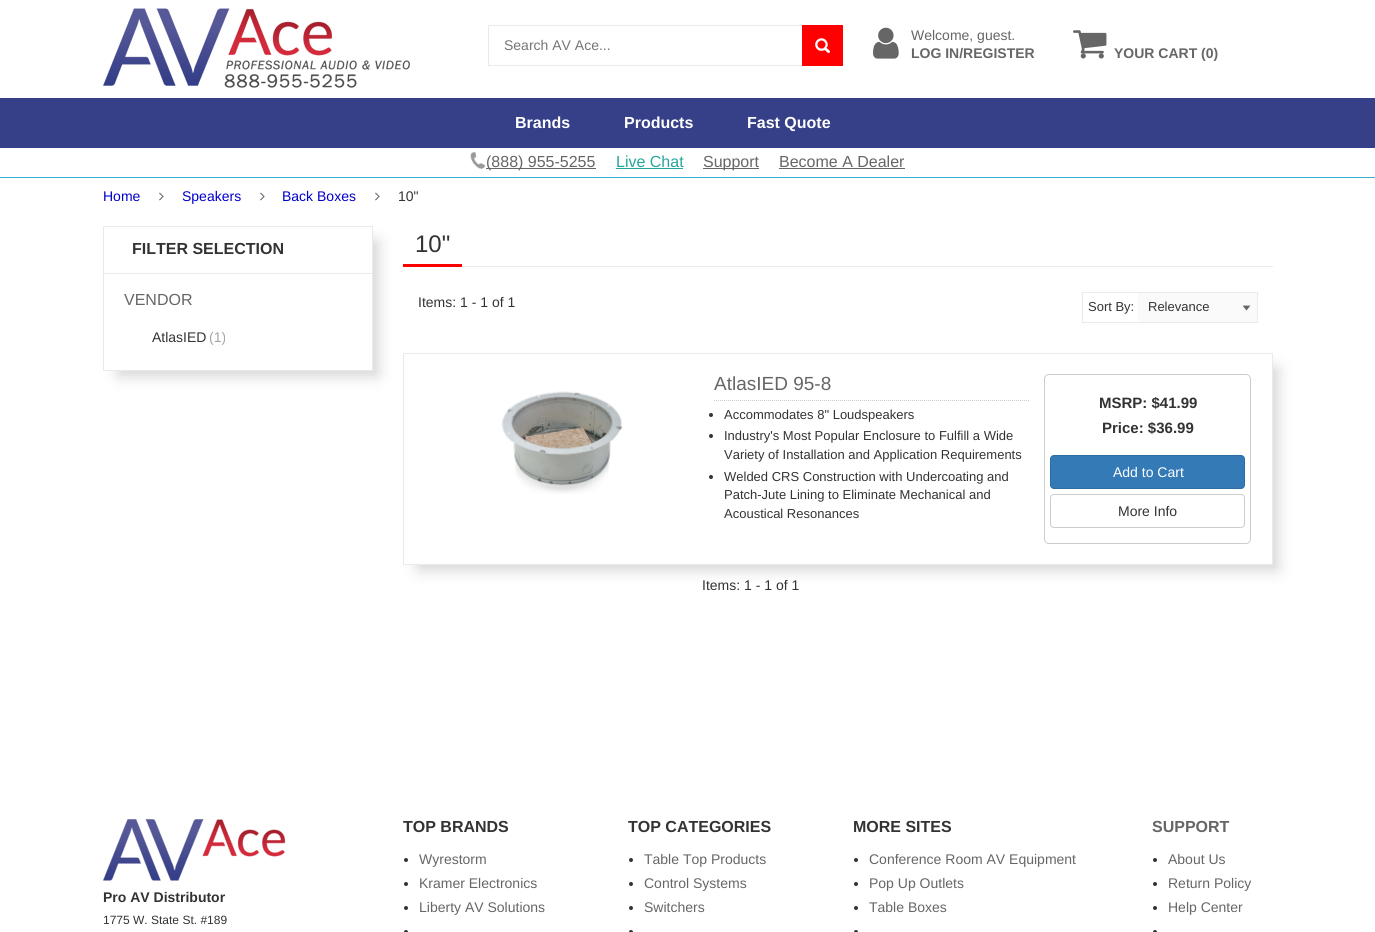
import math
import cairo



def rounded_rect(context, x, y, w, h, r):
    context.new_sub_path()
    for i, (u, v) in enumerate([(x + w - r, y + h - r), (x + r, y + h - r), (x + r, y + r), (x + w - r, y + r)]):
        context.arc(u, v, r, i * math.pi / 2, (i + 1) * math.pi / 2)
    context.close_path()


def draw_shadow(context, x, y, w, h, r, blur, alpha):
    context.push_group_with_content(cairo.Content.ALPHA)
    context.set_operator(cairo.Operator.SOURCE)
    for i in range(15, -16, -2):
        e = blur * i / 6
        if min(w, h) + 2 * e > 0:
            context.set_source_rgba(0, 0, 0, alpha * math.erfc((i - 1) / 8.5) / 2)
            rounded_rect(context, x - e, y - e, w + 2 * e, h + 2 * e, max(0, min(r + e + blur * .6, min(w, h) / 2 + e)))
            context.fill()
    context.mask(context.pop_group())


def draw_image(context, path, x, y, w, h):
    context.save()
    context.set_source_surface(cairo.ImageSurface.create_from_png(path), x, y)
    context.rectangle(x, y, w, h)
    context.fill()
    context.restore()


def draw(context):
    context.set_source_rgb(1, 1, 1)
    context.paint()
    draw_image(context, "images/1.png", 103, 8, 307, 80)
    context.rectangle(488.5, 25.5, 354, 40)
    context.set_source_rgb(234 / 255, 234 / 255, 234 / 255)
    context.set_line_width(1)
    context.stroke()
    context.set_source_rgb(1, 0, 0)
    context.rectangle(802, 25, 41, 41)
    context.fill()
    draw_image(context, "images/2.png", 815, 38, 15, 15)
    draw_image(context, "images/3.png", 873, 27, 26, 32)
    draw_image(context, "images/4.png", 1073, 30, 34, 29)
    context.set_source_rgb(54 / 255, 64 / 255, 136 / 255)
    context.rectangle(0, 98, 1375, 50)
    context.fill()
    context.set_source_rgb(58 / 255, 173 / 255, 205 / 255)
    context.rectangle(0, 177, 1375, 1)
    context.fill()
    draw_image(context, "images/5.png", 470, 152, 16, 17)
    context.set_source_rgb(102 / 255, 102 / 255, 102 / 255)
    context.rectangle(486, 168, 110, 1)
    context.fill()
    context.set_source_rgb(37 / 255, 166 / 255, 156 / 255)
    context.rectangle(616, 168, 67, 1)
    context.fill()
    context.set_source_rgb(102 / 255, 102 / 255, 102 / 255)
    context.rectangle(703, 168, 56, 1)
    context.fill()
    context.rectangle(779, 168, 126, 1)
    context.fill()
    draw_image(context, "images/6.png", 159, 192, 5, 9)
    draw_image(context, "images/6.png", 260, 192, 5, 9)
    draw_image(context, "images/6.png", 375, 192, 5, 9)
    context.save()
    context.set_fill_rule(cairo.FillRule.EVEN_ODD)
    context.new_path()
    context.move_to(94, 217)
    context.line_to(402, 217)
    context.line_to(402, 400)
    context.line_to(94, 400)
    context.close_path()
    context.move_to(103, 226)
    context.line_to(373, 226)
    context.line_to(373, 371)
    context.line_to(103, 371)
    context.close_path()
    context.clip()
    context.set_source_rgb(0, 0, 0)
    draw_shadow(context, 119, 242, 258, 133, 0, 8, 0.19)
    context.restore()
    context.rectangle(103.5, 226.5, 269, 144)
    context.set_source_rgb(234 / 255, 234 / 255, 234 / 255)
    context.stroke()
    context.rectangle(104, 273, 268, 1)
    context.fill()
    context.rectangle(462, 266, 811, 1)
    context.fill()
    context.set_source_rgb(1, 0, 0)
    context.rectangle(403, 264, 59, 3)
    context.fill()
    context.rectangle(1082.5, 292.5, 175, 30)
    context.set_source_rgb(234 / 255, 234 / 255, 234 / 255)
    context.stroke()
    context.set_source_rgb(250 / 255, 250 / 255, 250 / 255)
    context.rectangle(1138, 293, 119, 29)
    context.fill()
    draw_image(context, "images/7.png", 1242, 305, 9, 6)
    context.save()
    context.set_fill_rule(cairo.FillRule.EVEN_ODD)
    context.new_path()
    context.move_to(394, 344)
    context.line_to(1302, 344)
    context.line_to(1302, 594)
    context.line_to(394, 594)
    context.close_path()
    context.move_to(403, 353)
    context.line_to(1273, 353)
    context.line_to(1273, 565)
    context.line_to(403, 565)
    context.close_path()
    context.clip()
    context.set_source_rgb(0, 0, 0)
    draw_shadow(context, 419, 369, 858, 200, 0, 8, 0.19)
    context.restore()
    context.rectangle(403.5, 353.5, 869, 211)
    context.set_source_rgb(234 / 255, 234 / 255, 234 / 255)
    context.stroke()
    draw_image(context, "images/8.png", 501, 391, 122, 103)
    context.new_path()
    context.move_to(714, 400.5)
    context.line_to(1029, 400.5)
    context.set_source_rgb(204 / 255, 204 / 255, 204 / 255)
    context.set_dash([1, 1])
    context.stroke()
    context.set_source_rgb(51 / 255, 51 / 255, 51 / 255)
    context.arc(711, 415, 2, 0, 2 * math.pi)
    context.fill()
    context.arc(711, 436, 2, 0, 2 * math.pi)
    context.fill()
    context.arc(711, 477, 2, 0, 2 * math.pi)
    context.fill()
    rounded_rect(context, 1044.5, 374.5, 206, 169, 4.5)
    context.set_source_rgb(204 / 255, 204 / 255, 204 / 255)
    context.set_dash([])
    context.stroke()
    context.set_source_rgb(51 / 255, 122 / 255, 183 / 255)
    rounded_rect(context, 1050.5, 455.5, 194, 33, 3.5)
    context.fill_preserve()
    context.set_source_rgb(46 / 255, 109 / 255, 164 / 255)
    context.stroke()
    rounded_rect(context, 1050.5, 494.5, 194, 33, 3.5)
    context.set_source_rgb(204 / 255, 204 / 255, 204 / 255)
    context.stroke()
    draw_image(context, "images/9.png", 103, 819, 183, 62)
    context.set_source_rgb(51 / 255, 51 / 255, 51 / 255)
    context.arc(406, 860, 2, 0, 2 * math.pi)
    context.fill()
    context.arc(406, 884, 2, 0, 2 * math.pi)
    context.fill()
    context.arc(406, 908, 2, 0, 2 * math.pi)
    context.fill()
    context.arc(406, 932, 2, 0, 2 * math.pi)
    context.fill()
    context.arc(631, 860, 2, 0, 2 * math.pi)
    context.fill()
    context.arc(631, 884, 2, 0, 2 * math.pi)
    context.fill()
    context.arc(631, 908, 2, 0, 2 * math.pi)
    context.fill()
    context.arc(631, 932, 2, 0, 2 * math.pi)
    context.fill()
    context.arc(856, 860, 2, 0, 2 * math.pi)
    context.fill()
    context.arc(856, 884, 2, 0, 2 * math.pi)
    context.fill()
    context.arc(856, 908, 2, 0, 2 * math.pi)
    context.fill()
    context.arc(856, 932, 2, 0, 2 * math.pi)
    context.fill()
    context.arc(1155, 860, 2, 0, 2 * math.pi)
    context.fill()
    context.arc(1155, 884, 2, 0, 2 * math.pi)
    context.fill()
    context.arc(1155, 908, 2, 0, 2 * math.pi)
    context.fill()
    context.arc(1155, 932, 2, 0, 2 * math.pi)
    context.fill()
    context.select_font_face("Liberation Sans")
    context.set_font_size(14)
    context.set_source_rgb(117 / 255, 117 / 255, 117 / 255)
    context.move_to(504, 50)
    context.show_text("Search AV Ace...")
    context.set_source_rgb(102 / 255, 102 / 255, 102 / 255)
    context.move_to(911, 40)
    context.show_text("Welcome, guest.")
    context.select_font_face("Liberation Sans", cairo.FontSlant.NORMAL, cairo.FontWeight.BOLD)
    context.move_to(911, 58)
    context.show_text("LOG IN/REGISTER")
    context.move_to(1114, 58)
    context.show_text("YOUR CART (0)")
    context.set_font_size(16)
    context.set_source_rgb(1, 1, 1)
    context.move_to(515, 128)
    context.show_text("Brands")
    context.move_to(624, 128)
    context.show_text("Products")
    context.move_to(747, 128)
    context.show_text("Fast Quote")
    context.select_font_face("Liberation Sans")
    context.set_source_rgb(102 / 255, 102 / 255, 102 / 255)
    context.move_to(486, 167)
    context.show_text("(888) 955-5255")
    context.set_source_rgb(37 / 255, 166 / 255, 156 / 255)
    context.move_to(616, 167)
    context.show_text("Live Chat")
    context.set_source_rgb(102 / 255, 102 / 255, 102 / 255)
    context.move_to(703, 167)
    context.show_text("Support")
    context.move_to(779, 167)
    context.show_text("Become A Dealer")
    context.set_font_size(14)
    context.set_source_rgb(0, 0, 204 / 255)
    context.move_to(103, 201)
    context.show_text("Home")
    context.move_to(182, 201)
    context.show_text("Speakers")
    context.move_to(282, 201)
    context.show_text("Back Boxes")
    context.set_source_rgb(51 / 255, 51 / 255, 51 / 255)
    context.move_to(398, 201)
    context.show_text("10\"")
    context.select_font_face("Liberation Sans", cairo.FontSlant.NORMAL, cairo.FontWeight.BOLD)
    context.set_font_size(16)
    context.move_to(132, 254)
    context.show_text("FILTER SELECTION")
    context.select_font_face("Liberation Sans")
    context.set_source_rgb(102 / 255, 102 / 255, 102 / 255)
    context.move_to(124, 305)
    context.show_text("VENDOR")
    context.set_font_size(14)
    context.set_source_rgb(51 / 255, 51 / 255, 51 / 255)
    context.move_to(152, 342)
    context.show_text("AtlasIED")
    context.set_source_rgb(164 / 255, 164 / 255, 164 / 255)
    context.move_to(209, 342)
    context.show_text("(1)")
    context.set_font_size(24)
    context.set_source_rgb(51 / 255, 51 / 255, 51 / 255)
    context.move_to(415, 252)
    context.show_text("10\"")
    context.set_font_size(14)
    context.move_to(418, 307)
    context.show_text("Items: 1 - 1 of 1")
    context.set_font_size(13)
    context.move_to(1088, 311)
    context.show_text("Sort By:")
    context.move_to(1148, 311)
    context.show_text("Relevance")
    context.set_font_size(19)
    context.set_source_rgb(102 / 255, 102 / 255, 102 / 255)
    context.move_to(714, 390)
    context.show_text("AtlasIED 95-8")
    context.set_font_size(13)
    context.set_source_rgb(51 / 255, 51 / 255, 51 / 255)
    context.move_to(724, 419)
    context.show_text("Accommodates 8\" Loudspeakers")
    context.move_to(724, 440)
    context.show_text("Industry's Most Popular Enclosure to Fulfill a Wide")
    context.move_to(724, 459)
    context.show_text("Variety of Installation and Application Requirements")
    context.move_to(724, 481)
    context.show_text("Welded CRS Construction with Undercoating and")
    context.move_to(724, 499)
    context.show_text("Patch-Jute Lining to Eliminate Mechanical and")
    context.move_to(724, 518)
    context.show_text("Acoustical Resonances")
    context.select_font_face("Liberation Sans", cairo.FontSlant.NORMAL, cairo.FontWeight.BOLD)
    context.set_font_size(15)
    context.move_to(1099, 408)
    context.show_text("MSRP: $41.99")
    context.move_to(1102, 433)
    context.show_text("Price: $36.99")
    context.select_font_face("Liberation Sans")
    context.set_font_size(14)
    context.set_source_rgb(1, 1, 1)
    context.move_to(1113, 477)
    context.show_text("Add to Cart")
    context.set_source_rgb(51 / 255, 51 / 255, 51 / 255)
    context.move_to(1118, 516)
    context.show_text("More Info")
    context.move_to(702, 590)
    context.show_text("Items: 1 - 1 of 1")
    context.select_font_face("Liberation Sans", cairo.FontSlant.NORMAL, cairo.FontWeight.BOLD)
    context.move_to(103, 902)
    context.show_text("Pro AV Distributor")
    context.select_font_face("Liberation Sans")
    context.set_font_size(12)
    context.move_to(103, 924)
    context.show_text("1775 W. State St. #189")
    context.select_font_face("Liberation Sans", cairo.FontSlant.NORMAL, cairo.FontWeight.BOLD)
    context.set_font_size(16)
    context.move_to(403, 832)
    context.show_text("TOP BRANDS")
    context.select_font_face("Liberation Sans")
    context.set_font_size(14)
    context.set_source_rgb(102 / 255, 102 / 255, 102 / 255)
    context.move_to(419, 864)
    context.show_text("Wyrestorm")
    context.move_to(419, 888)
    context.show_text("Kramer Electronics")
    context.move_to(419, 912)
    context.show_text("Liberty AV Solutions")
    context.select_font_face("Liberation Sans", cairo.FontSlant.NORMAL, cairo.FontWeight.BOLD)
    context.set_font_size(16)
    context.set_source_rgb(51 / 255, 51 / 255, 51 / 255)
    context.move_to(628, 832)
    context.show_text("TOP CATEGORIES")
    context.select_font_face("Liberation Sans")
    context.set_font_size(14)
    context.set_source_rgb(102 / 255, 102 / 255, 102 / 255)
    context.move_to(644, 864)
    context.show_text("Table Top Products")
    context.move_to(644, 888)
    context.show_text("Control Systems")
    context.move_to(644, 912)
    context.show_text("Switchers")
    context.select_font_face("Liberation Sans", cairo.FontSlant.NORMAL, cairo.FontWeight.BOLD)
    context.set_font_size(16)
    context.set_source_rgb(51 / 255, 51 / 255, 51 / 255)
    context.move_to(853, 832)
    context.show_text("MORE SITES")
    context.select_font_face("Liberation Sans")
    context.set_font_size(14)
    context.set_source_rgb(102 / 255, 102 / 255, 102 / 255)
    context.move_to(869, 864)
    context.show_text("Conference Room AV Equipment")
    context.move_to(869, 888)
    context.show_text("Pop Up Outlets")
    context.move_to(869, 912)
    context.show_text("Table Boxes")
    context.select_font_face("Liberation Sans", cairo.FontSlant.NORMAL, cairo.FontWeight.BOLD)
    context.set_font_size(16)
    context.move_to(1152, 832)
    context.show_text("SUPPORT")
    context.select_font_face("Liberation Sans")
    context.set_font_size(14)
    context.move_to(1168, 864)
    context.show_text("About Us")
    context.move_to(1168, 888)
    context.show_text("Return Policy")
    context.move_to(1168, 912)
    context.show_text("Help Center")


surface = cairo.ImageSurface(cairo.Format.RGB24, 1375, 932)
context = cairo.Context(surface)
options = cairo.FontOptions()
options.set_hint_metrics(cairo.HintMetrics.OFF)
options.set_hint_style(cairo.HintStyle.NONE)
context.set_font_options(options)
context.set_miter_limit(4)
draw(context)
surface.write_to_png("out.png")
